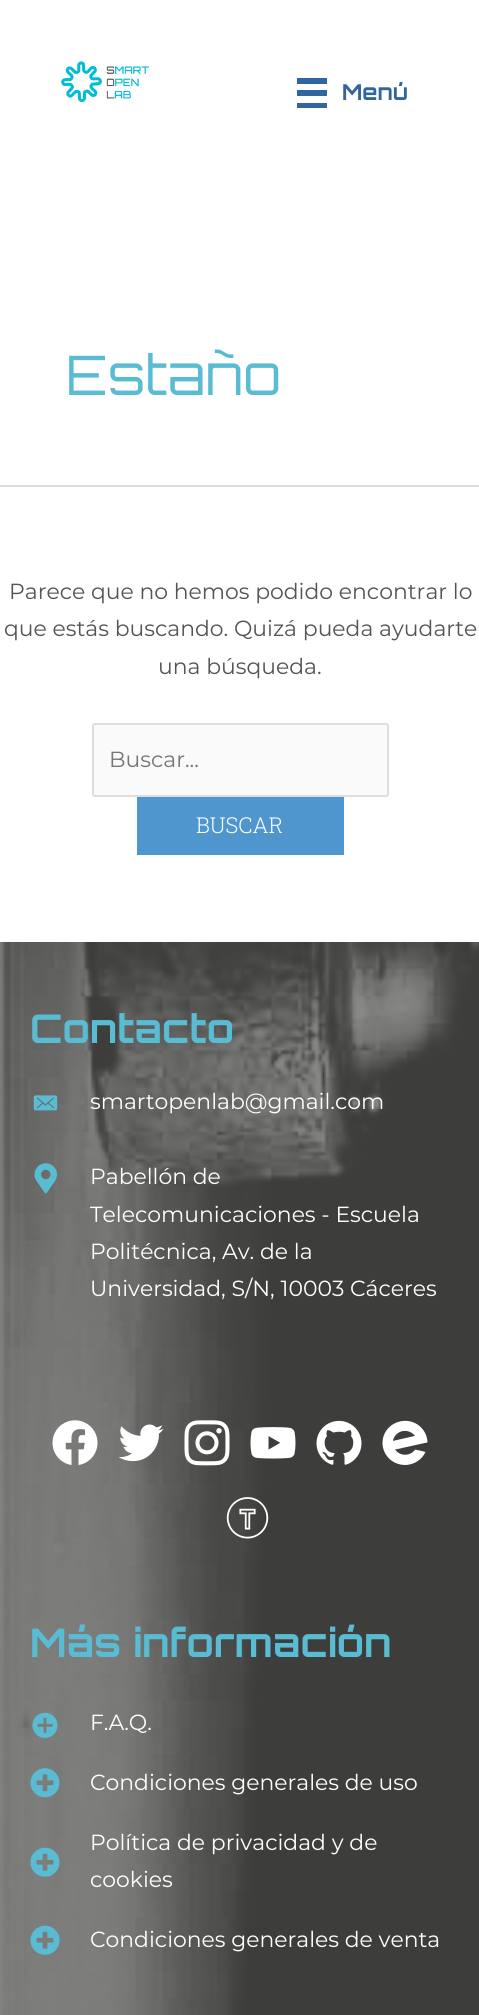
import math
import cairo



def rounded_rect(context, x, y, w, h, r):
    context.new_sub_path()
    for i, (u, v) in enumerate([(x + w - r, y + h - r), (x + r, y + h - r), (x + r, y + r), (x + w - r, y + r)]):
        context.arc(u, v, r, i * math.pi / 2, (i + 1) * math.pi / 2)
    context.close_path()


def draw_image(context, path, x, y, w, h):
    context.save()
    context.set_source_surface(cairo.ImageSurface.create_from_png(path), x, y)
    context.rectangle(x, y, w, h)
    context.fill()
    context.restore()


def draw(context):
    context.set_source_rgb(1, 1, 1)
    context.paint()
    draw_image(context, "images/1.png", 61, 61, 88, 42)
    context.set_source_rgb(49 / 255, 101 / 255, 158 / 255)
    context.rectangle(297, 78, 30, 6)
    context.fill()
    context.rectangle(297, 90, 30, 6)
    context.fill()
    context.rectangle(297, 103, 30, 5)
    context.fill()
    context.set_source_rgb(221 / 255, 221 / 255, 221 / 255)
    context.rectangle(0, 485, 479, 2)
    context.fill()
    context.set_source_rgb(250 / 255, 250 / 255, 250 / 255)
    rounded_rect(context, 93, 724, 295, 72, 2)
    context.fill_preserve()
    context.set_source_rgb(221 / 255, 221 / 255, 221 / 255)
    context.stroke()
    context.set_source_rgb(79 / 255, 150 / 255, 206 / 255)
    context.rectangle(137, 797, 207, 58)
    context.fill()
    draw_image(context, "images/2.png", 0, 942, 479, 1073)
    draw_image(context, "images/3.png", 33, 1095, 25, 16)
    draw_image(context, "images/4.png", 34, 1163, 23, 31)
    draw_image(context, "images/5.png", 52, 1420, 46, 45)
    draw_image(context, "images/6.png", 118, 1424, 46, 38)
    draw_image(context, "images/7.png", 184, 1420, 46, 46)
    draw_image(context, "images/8.png", 250, 1427, 46, 32)
    draw_image(context, "images/9.png", 316, 1420, 46, 45)
    draw_image(context, "images/10.png", 382, 1420, 46, 45)
    draw_image(context, "images/11.png", 226, 1497, 43, 42)
    draw_image(context, "images/12.png", 32, 1712, 26, 26)
    draw_image(context, "images/13.png", 30, 1768, 30, 30)
    draw_image(context, "images/14.png", 30, 1847, 30, 30)
    draw_image(context, "images/15.png", 30, 1925, 30, 30)
    context.select_font_face("Orbitron", cairo.FontSlant.NORMAL, cairo.FontWeight.BOLD)
    context.set_font_size(21.9)
    context.set_source_rgb(49 / 255, 101 / 255, 158 / 255)
    context.move_to(342, 100)
    context.show_text("Menú")
    context.select_font_face("Orbitron")
    context.set_font_size(54.5)
    context.set_source_rgb(89 / 255, 188 / 255, 211 / 255)
    context.move_to(66, 395)
    context.show_text("Estaño")
    context.select_font_face("Montserrat Thin")
    context.set_font_size(21.9)
    context.set_source_rgb(84 / 255, 84 / 255, 84 / 255)
    context.move_to(9, 599)
    context.show_text("Parece que no hemos podido encontrar lo")
    context.move_to(4, 636)
    context.show_text("que estás buscando. Quizá pueda ayudarte")
    context.move_to(158, 674)
    context.show_text("una búsqueda.")
    context.set_source_rgb(117 / 255, 117 / 255, 117 / 255)
    context.move_to(109, 767)
    context.show_text("Buscar...")
    context.select_font_face("Roboto Slab Light")
    context.set_source_rgb(1, 1, 1)
    context.move_to(196, 833)
    context.show_text("BUSCAR")
    context.select_font_face("Orbitron", cairo.FontSlant.NORMAL, cairo.FontWeight.BOLD)
    context.set_font_size(39.5)
    context.set_source_rgb(89 / 255, 188 / 255, 211 / 255)
    context.move_to(30, 1043)
    context.show_text("Contacto")
    context.select_font_face("Montserrat Thin")
    context.set_font_size(21.9)
    context.set_source_rgb(1, 1, 1)
    context.move_to(90, 1109)
    context.show_text("smartopenlab@gmail.com")
    context.move_to(90, 1184)
    context.show_text("Pabellón de")
    context.move_to(90, 1222)
    context.show_text("Telecomunicaciones - Escuela")
    context.move_to(90, 1259)
    context.show_text("Politécnica, Av. de la")
    context.move_to(90, 1296)
    context.show_text("Universidad, S/N, 10003 Cáceres")
    context.select_font_face("Orbitron", cairo.FontSlant.NORMAL, cairo.FontWeight.BOLD)
    context.set_font_size(39.5)
    context.set_source_rgb(89 / 255, 188 / 255, 211 / 255)
    context.move_to(30, 1657)
    context.show_text("Más información")
    context.select_font_face("Montserrat Thin")
    context.set_font_size(21.9)
    context.set_source_rgb(1, 1, 1)
    context.move_to(90, 1730)
    context.show_text("F.A.Q.")
    context.move_to(90, 1790)
    context.show_text("Condiciones generales de uso")
    context.move_to(90, 1850)
    context.show_text("Política de privacidad y de")
    context.move_to(90, 1887)
    context.show_text("cookies")
    context.move_to(90, 1947)
    context.show_text("Condiciones generales de venta")


surface = cairo.ImageSurface(cairo.Format.RGB24, 479, 2015)
context = cairo.Context(surface)
options = cairo.FontOptions()
options.set_hint_metrics(cairo.HintMetrics.OFF)
options.set_hint_style(cairo.HintStyle.NONE)
context.set_font_options(options)
context.set_miter_limit(4)
draw(context)
surface.write_to_png("out.png")
